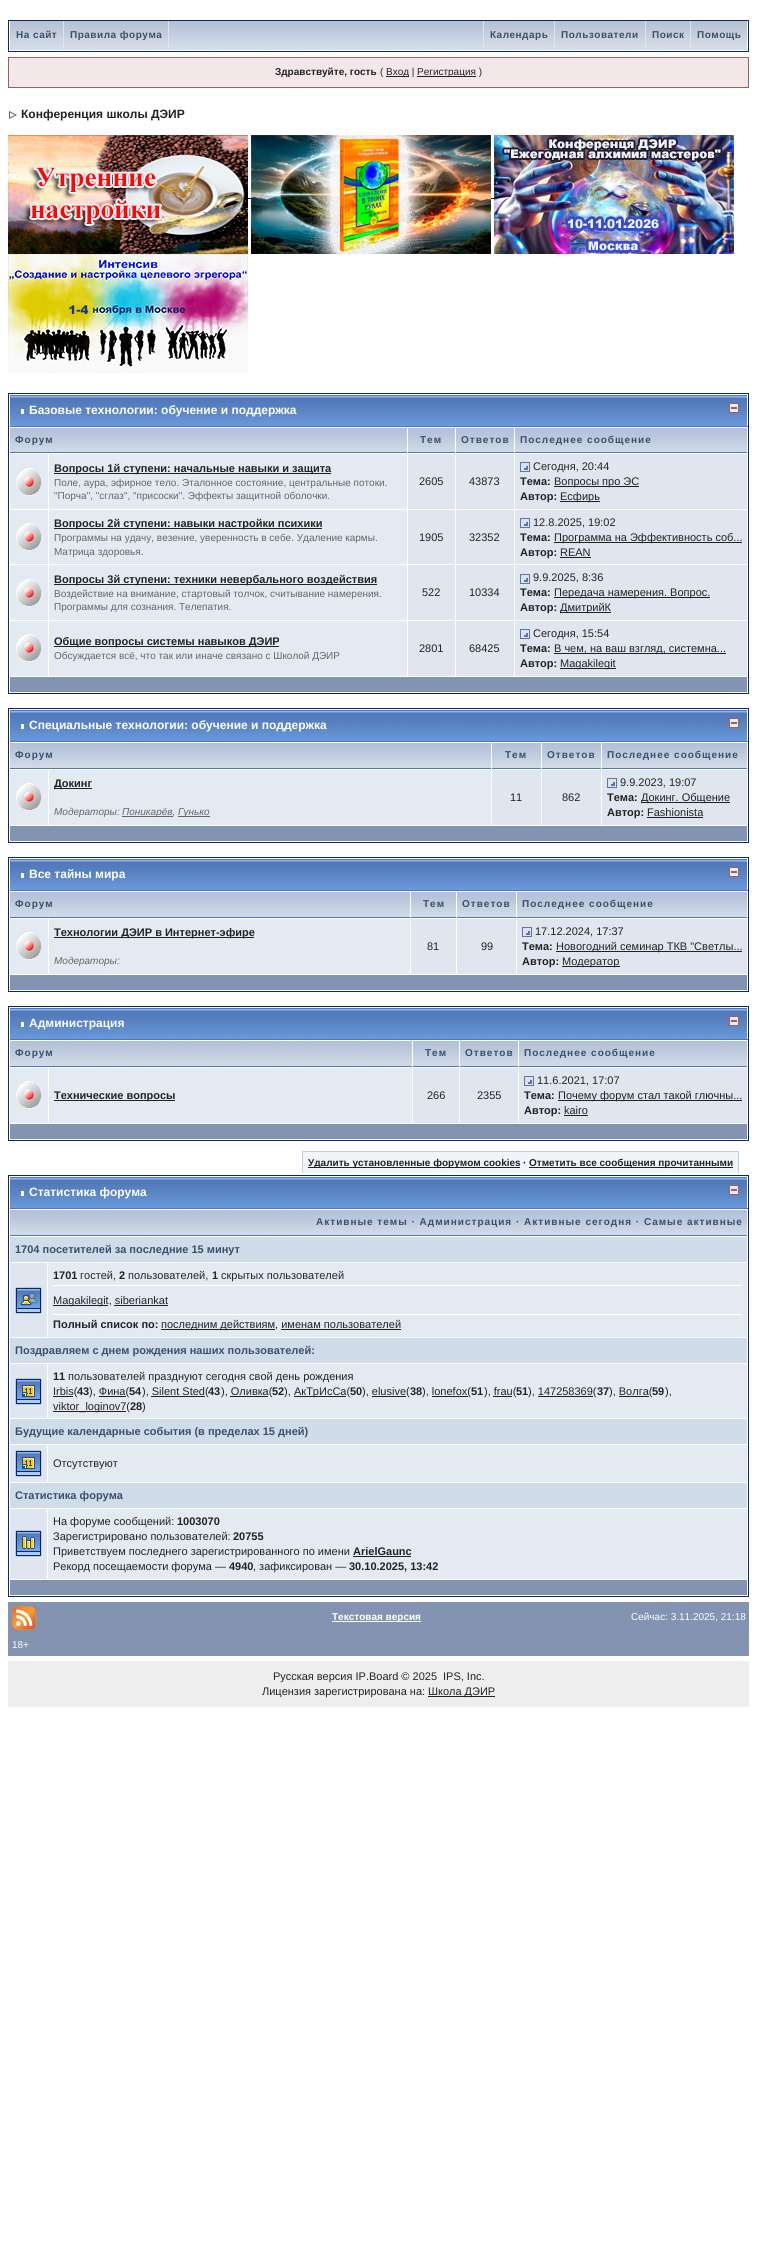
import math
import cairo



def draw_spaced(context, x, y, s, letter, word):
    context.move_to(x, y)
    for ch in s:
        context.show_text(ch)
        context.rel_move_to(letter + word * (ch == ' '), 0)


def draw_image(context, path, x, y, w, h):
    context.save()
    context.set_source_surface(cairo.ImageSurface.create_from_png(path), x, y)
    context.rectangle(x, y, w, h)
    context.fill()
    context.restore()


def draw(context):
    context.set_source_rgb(1, 1, 1)
    context.paint()
    context.rectangle(8.5, 20.5, 740, 31)
    context.set_source_rgb(7 / 255, 42 / 255, 102 / 255)
    context.set_line_width(1)
    context.stroke()
    draw_image(context, "images/1.png", 10, 21, 737, 29)
    draw_image(context, "images/2.png", 10, 21, 53, 18)
    context.set_source_rgb(220 / 255, 227 / 255, 238 / 255)
    context.rectangle(63, 21, 1, 29)
    context.fill()
    draw_image(context, "images/3.png", 64, 21, 104, 27)
    context.rectangle(168, 21, 1, 29)
    context.fill()
    draw_image(context, "images/4.png", 484, 21, 70, 27)
    context.rectangle(483, 21, 1, 29)
    context.fill()
    draw_image(context, "images/5.png", 555, 21, 90, 27)
    context.rectangle(554, 21, 1, 29)
    context.fill()
    draw_image(context, "images/6.png", 646, 21, 44, 27)
    context.rectangle(645, 21, 1, 29)
    context.fill()
    draw_image(context, "images/7.png", 691, 21, 56, 27)
    context.rectangle(690, 21, 1, 29)
    context.fill()
    context.set_source_rgb(244 / 255, 231 / 255, 234 / 255)
    context.rectangle(8.5, 57.5, 740, 30)
    context.fill_preserve()
    context.set_source_rgb(152 / 255, 98 / 255, 101 / 255)
    context.stroke()
    context.set_source_rgb(34 / 255, 34 / 255, 34 / 255)
    context.rectangle(386, 76, 23, 1)
    context.fill()
    context.rectangle(417, 76, 59, 1)
    context.fill()
    draw_image(context, "images/8.png", 9, 111, 8, 8)
    draw_image(context, "images/9.png", 8, 135, 240, 119)
    context.rectangle(248, 198, 3, 1)
    context.fill()
    draw_image(context, "images/10.png", 251, 135, 240, 119)
    context.rectangle(491, 198, 3, 1)
    context.fill()
    draw_image(context, "images/11.png", 494, 135, 240, 119)
    draw_image(context, "images/12.png", 8, 254, 240, 119)
    context.rectangle(8.5, 393.5, 740, 300)
    context.set_source_rgb(7 / 255, 42 / 255, 102 / 255)
    context.stroke()
    draw_image(context, "images/13.png", 10, 395, 737, 31)
    context.set_source_rgb(81 / 255, 118 / 255, 181 / 255)
    context.rectangle(9, 426, 739, 1)
    context.fill()
    context.set_source_rgb(1, 1, 1)
    context.rectangle(9, 426, 1, 1)
    context.fill()
    context.rectangle(21, 409, 3, 5)
    context.fill()
    draw_image(context, "images/14.png", 729, 403, 10, 10)
    draw_image(context, "images/15.png", 10, 428, 397, 24)
    context.set_source_rgb(81 / 255, 118 / 255, 181 / 255)
    context.rectangle(10, 452, 397, 1)
    context.fill()
    draw_image(context, "images/16.png", 408, 428, 47, 24)
    context.rectangle(408, 452, 47, 1)
    context.fill()
    draw_image(context, "images/17.png", 456, 428, 58, 24)
    context.rectangle(456, 452, 58, 1)
    context.fill()
    draw_image(context, "images/18.png", 515, 428, 232, 24)
    context.rectangle(515, 452, 232, 1)
    context.fill()
    context.set_source_rgb(228 / 255, 234 / 255, 242 / 255)
    context.rectangle(10, 454, 38, 55)
    context.fill()
    draw_image(context, "images/19.png", 16, 468, 26, 28)
    context.rectangle(49, 454, 358, 55)
    context.fill()
    context.set_source_rgb(34 / 255, 34 / 255, 34 / 255)
    context.rectangle(54, 473, 277, 1)
    context.fill()
    context.set_source_rgb(223 / 255, 230 / 255, 239 / 255)
    context.rectangle(408, 454, 47, 55)
    context.fill()
    context.rectangle(456, 454, 58, 55)
    context.fill()
    context.rectangle(515, 454, 232, 55)
    context.fill()
    draw_image(context, "images/20.png", 520, 462, 10, 10)
    context.set_source_rgb(34 / 255, 34 / 255, 34 / 255)
    context.rectangle(554, 486, 85, 1)
    context.fill()
    context.rectangle(560, 501, 40, 1)
    context.fill()
    context.set_source_rgb(228 / 255, 234 / 255, 242 / 255)
    context.rectangle(10, 510, 38, 54)
    context.fill()
    draw_image(context, "images/19.png", 16, 523, 26, 28)
    context.rectangle(49, 510, 358, 54)
    context.fill()
    context.set_source_rgb(34 / 255, 34 / 255, 34 / 255)
    context.rectangle(54, 528, 268, 1)
    context.fill()
    context.set_source_rgb(223 / 255, 230 / 255, 239 / 255)
    context.rectangle(408, 510, 47, 54)
    context.fill()
    context.rectangle(456, 510, 58, 54)
    context.fill()
    context.rectangle(515, 510, 232, 54)
    context.fill()
    draw_image(context, "images/20.png", 520, 518, 10, 10)
    context.set_source_rgb(34 / 255, 34 / 255, 34 / 255)
    context.rectangle(554, 542, 188, 1)
    context.fill()
    context.rectangle(560, 557, 31, 1)
    context.fill()
    context.set_source_rgb(228 / 255, 234 / 255, 242 / 255)
    context.rectangle(10, 565, 38, 55)
    context.fill()
    draw_image(context, "images/19.png", 16, 579, 26, 28)
    context.rectangle(49, 565, 358, 55)
    context.fill()
    context.set_source_rgb(34 / 255, 34 / 255, 34 / 255)
    context.rectangle(54, 584, 323, 1)
    context.fill()
    context.set_source_rgb(223 / 255, 230 / 255, 239 / 255)
    context.rectangle(408, 565, 47, 55)
    context.fill()
    context.rectangle(456, 565, 58, 55)
    context.fill()
    context.rectangle(515, 565, 232, 55)
    context.fill()
    draw_image(context, "images/20.png", 520, 574, 10, 10)
    context.set_source_rgb(34 / 255, 34 / 255, 34 / 255)
    context.rectangle(554, 597, 156, 1)
    context.fill()
    context.rectangle(560, 612, 51, 1)
    context.fill()
    context.set_source_rgb(228 / 255, 234 / 255, 242 / 255)
    context.rectangle(10, 621, 38, 55)
    context.fill()
    draw_image(context, "images/19.png", 16, 634, 26, 28)
    context.rectangle(49, 621, 358, 55)
    context.fill()
    context.set_source_rgb(34 / 255, 34 / 255, 34 / 255)
    context.rectangle(54, 646, 225, 1)
    context.fill()
    context.set_source_rgb(223 / 255, 230 / 255, 239 / 255)
    context.rectangle(408, 621, 47, 55)
    context.fill()
    context.rectangle(456, 621, 58, 55)
    context.fill()
    context.rectangle(515, 621, 232, 55)
    context.fill()
    draw_image(context, "images/20.png", 520, 629, 10, 10)
    context.set_source_rgb(34 / 255, 34 / 255, 34 / 255)
    context.rectangle(554, 653, 172, 1)
    context.fill()
    context.rectangle(560, 668, 56, 1)
    context.fill()
    context.set_source_rgb(131 / 255, 148 / 255, 178 / 255)
    context.rectangle(10, 677, 737, 15)
    context.fill()
    context.rectangle(8.5, 708.5, 740, 134)
    context.set_source_rgb(7 / 255, 42 / 255, 102 / 255)
    context.stroke()
    draw_image(context, "images/13.png", 10, 710, 737, 31)
    context.set_source_rgb(81 / 255, 118 / 255, 181 / 255)
    context.rectangle(9, 741, 739, 1)
    context.fill()
    context.set_source_rgb(1, 1, 1)
    context.rectangle(9, 741, 1, 1)
    context.fill()
    context.rectangle(21, 724, 3, 5)
    context.fill()
    draw_image(context, "images/14.png", 729, 718, 10, 10)
    draw_image(context, "images/21.png", 10, 743, 481, 25)
    context.set_source_rgb(81 / 255, 118 / 255, 181 / 255)
    context.rectangle(10, 768, 481, 1)
    context.fill()
    draw_image(context, "images/22.png", 492, 743, 49, 25)
    context.rectangle(492, 768, 49, 1)
    context.fill()
    draw_image(context, "images/23.png", 542, 743, 59, 25)
    context.rectangle(542, 768, 59, 1)
    context.fill()
    draw_image(context, "images/24.png", 602, 743, 145, 25)
    context.rectangle(602, 768, 145, 1)
    context.fill()
    context.set_source_rgb(228 / 255, 234 / 255, 242 / 255)
    context.rectangle(10, 770, 38, 55)
    context.fill()
    draw_image(context, "images/19.png", 16, 783, 26, 28)
    context.rectangle(49, 770, 442, 55)
    context.fill()
    context.set_source_rgb(34 / 255, 34 / 255, 34 / 255)
    context.rectangle(54, 788, 38, 1)
    context.fill()
    context.set_source_rgb(102 / 255, 102 / 255, 102 / 255)
    context.rectangle(122, 816, 51, 1)
    context.fill()
    context.rectangle(178, 816, 32, 1)
    context.fill()
    context.set_source_rgb(223 / 255, 230 / 255, 239 / 255)
    context.rectangle(492, 770, 49, 55)
    context.fill()
    context.rectangle(542, 770, 59, 55)
    context.fill()
    context.rectangle(602, 770, 145, 55)
    context.fill()
    draw_image(context, "images/20.png", 607, 778, 10, 10)
    context.set_source_rgb(34 / 255, 34 / 255, 34 / 255)
    context.rectangle(641, 802, 89, 1)
    context.fill()
    context.rectangle(647, 817, 56, 1)
    context.fill()
    context.set_source_rgb(131 / 255, 148 / 255, 178 / 255)
    context.rectangle(10, 826, 737, 15)
    context.fill()
    context.rectangle(8.5, 857.5, 740, 134)
    context.set_source_rgb(7 / 255, 42 / 255, 102 / 255)
    context.stroke()
    draw_image(context, "images/13.png", 10, 859, 737, 31)
    context.set_source_rgb(81 / 255, 118 / 255, 181 / 255)
    context.rectangle(9, 890, 739, 1)
    context.fill()
    context.set_source_rgb(1, 1, 1)
    context.rectangle(9, 890, 1, 1)
    context.fill()
    context.rectangle(21, 873, 3, 5)
    context.fill()
    draw_image(context, "images/14.png", 729, 867, 10, 10)
    draw_image(context, "images/25.png", 10, 892, 400, 25)
    context.set_source_rgb(81 / 255, 118 / 255, 181 / 255)
    context.rectangle(10, 917, 400, 1)
    context.fill()
    draw_image(context, "images/26.png", 411, 892, 45, 25)
    context.rectangle(411, 917, 45, 1)
    context.fill()
    draw_image(context, "images/23.png", 457, 892, 59, 25)
    context.rectangle(457, 917, 59, 1)
    context.fill()
    draw_image(context, "images/27.png", 517, 892, 230, 25)
    context.rectangle(517, 917, 230, 1)
    context.fill()
    context.set_source_rgb(228 / 255, 234 / 255, 242 / 255)
    context.rectangle(10, 919, 38, 55)
    context.fill()
    draw_image(context, "images/19.png", 16, 932, 26, 28)
    context.rectangle(49, 919, 361, 55)
    context.fill()
    context.set_source_rgb(34 / 255, 34 / 255, 34 / 255)
    context.rectangle(54, 937, 200, 1)
    context.fill()
    context.set_source_rgb(223 / 255, 230 / 255, 239 / 255)
    context.rectangle(411, 919, 45, 55)
    context.fill()
    context.rectangle(457, 919, 59, 55)
    context.fill()
    context.rectangle(517, 919, 230, 55)
    context.fill()
    draw_image(context, "images/20.png", 522, 927, 10, 10)
    context.set_source_rgb(34 / 255, 34 / 255, 34 / 255)
    context.rectangle(556, 951, 186, 1)
    context.fill()
    context.rectangle(562, 966, 58, 1)
    context.fill()
    context.set_source_rgb(131 / 255, 148 / 255, 178 / 255)
    context.rectangle(10, 975, 737, 15)
    context.fill()
    context.rectangle(8.5, 1006.5, 740, 134)
    context.set_source_rgb(7 / 255, 42 / 255, 102 / 255)
    context.stroke()
    draw_image(context, "images/13.png", 10, 1008, 737, 31)
    context.set_source_rgb(81 / 255, 118 / 255, 181 / 255)
    context.rectangle(9, 1039, 739, 1)
    context.fill()
    context.set_source_rgb(1, 1, 1)
    context.rectangle(9, 1039, 1, 1)
    context.fill()
    context.rectangle(21, 1022, 3, 5)
    context.fill()
    draw_image(context, "images/14.png", 729, 1016, 10, 10)
    draw_image(context, "images/28.png", 10, 1041, 402, 25)
    context.set_source_rgb(81 / 255, 118 / 255, 181 / 255)
    context.rectangle(10, 1066, 402, 1)
    context.fill()
    draw_image(context, "images/29.png", 413, 1041, 46, 25)
    context.rectangle(413, 1066, 46, 1)
    context.fill()
    draw_image(context, "images/30.png", 460, 1041, 58, 25)
    context.rectangle(460, 1066, 58, 1)
    context.fill()
    draw_image(context, "images/31.png", 519, 1041, 228, 25)
    context.rectangle(519, 1066, 228, 1)
    context.fill()
    context.set_source_rgb(228 / 255, 234 / 255, 242 / 255)
    context.rectangle(10, 1068, 38, 55)
    context.fill()
    draw_image(context, "images/19.png", 16, 1081, 26, 28)
    context.rectangle(49, 1068, 363, 55)
    context.fill()
    context.set_source_rgb(34 / 255, 34 / 255, 34 / 255)
    context.rectangle(54, 1100, 121, 1)
    context.fill()
    context.set_source_rgb(223 / 255, 230 / 255, 239 / 255)
    context.rectangle(413, 1068, 46, 55)
    context.fill()
    context.rectangle(460, 1068, 58, 55)
    context.fill()
    context.rectangle(519, 1068, 228, 55)
    context.fill()
    draw_image(context, "images/20.png", 524, 1076, 10, 10)
    context.set_source_rgb(34 / 255, 34 / 255, 34 / 255)
    context.rectangle(558, 1100, 184, 1)
    context.fill()
    context.rectangle(564, 1115, 24, 1)
    context.fill()
    context.set_source_rgb(131 / 255, 148 / 255, 178 / 255)
    context.rectangle(10, 1124, 737, 15)
    context.fill()
    context.set_source_rgb(194 / 255, 207 / 255, 223 / 255)
    context.rectangle(302, 1151, 437, 1)
    context.fill()
    context.rectangle(302, 1151, 1, 22)
    context.fill()
    context.set_source_rgb(240 / 255, 245 / 255, 250 / 255)
    context.rectangle(303, 1152, 435, 21)
    context.fill()
    context.set_source_rgb(34 / 255, 34 / 255, 34 / 255)
    context.rectangle(308, 1167, 212, 1)
    context.fill()
    context.set_source_rgb(194 / 255, 207 / 255, 223 / 255)
    context.rectangle(738, 1151, 1, 22)
    context.fill()
    context.set_source_rgb(34 / 255, 34 / 255, 34 / 255)
    context.rectangle(529, 1167, 204, 1)
    context.fill()
    context.rectangle(8.5, 1175.5, 740, 421)
    context.set_source_rgb(7 / 255, 42 / 255, 102 / 255)
    context.stroke()
    draw_image(context, "images/13.png", 10, 1177, 737, 31)
    context.set_source_rgb(81 / 255, 118 / 255, 181 / 255)
    context.rectangle(9, 1208, 739, 1)
    context.fill()
    context.set_source_rgb(1, 1, 1)
    context.rectangle(9, 1208, 1, 1)
    context.fill()
    context.rectangle(21, 1191, 3, 5)
    context.fill()
    draw_image(context, "images/14.png", 729, 1185, 10, 10)
    draw_image(context, "images/32.png", 10, 1210, 737, 25)
    context.set_source_rgb(81 / 255, 118 / 255, 181 / 255)
    context.rectangle(10, 1235, 737, 1)
    context.fill()
    context.set_source_rgb(209 / 255, 220 / 255, 235 / 255)
    context.rectangle(10, 1237, 737, 25)
    context.fill()
    context.set_source_rgb(223 / 255, 230 / 255, 239 / 255)
    context.rectangle(10, 1263, 37, 74)
    context.fill()
    draw_image(context, "images/33.png", 15, 1287, 27, 27)
    context.set_source_rgb(228 / 255, 234 / 255, 242 / 255)
    context.rectangle(48, 1263, 699, 74)
    context.fill()
    context.set_source_rgb(1, 1, 1)
    context.rectangle(53, 1285, 689, 1)
    context.fill()
    context.rectangle(53, 1314, 689, 1)
    context.fill()
    context.set_source_rgb(34 / 255, 34 / 255, 34 / 255)
    context.rectangle(53, 1305, 55, 1)
    context.fill()
    context.rectangle(114, 1305, 54, 1)
    context.fill()
    context.rectangle(161, 1329, 114, 1)
    context.fill()
    context.rectangle(281, 1329, 120, 1)
    context.fill()
    context.set_source_rgb(209 / 255, 220 / 255, 235 / 255)
    context.rectangle(10, 1338, 737, 25)
    context.fill()
    context.set_source_rgb(223 / 255, 230 / 255, 239 / 255)
    context.rectangle(10, 1364, 37, 54)
    context.fill()
    draw_image(context, "images/34.png", 15, 1378, 27, 27)
    context.set_source_rgb(228 / 255, 234 / 255, 242 / 255)
    context.rectangle(48, 1364, 699, 54)
    context.fill()
    context.set_source_rgb(34 / 255, 34 / 255, 34 / 255)
    context.rectangle(53, 1396, 20, 1)
    context.fill()
    context.rectangle(294, 1396, 52, 1)
    context.fill()
    context.rectangle(99, 1396, 27, 1)
    context.fill()
    context.rectangle(151, 1396, 54, 1)
    context.fill()
    context.rectangle(230, 1396, 38, 1)
    context.fill()
    context.rectangle(372, 1396, 34, 1)
    context.fill()
    context.rectangle(432, 1396, 36, 1)
    context.fill()
    context.rectangle(493, 1396, 19, 1)
    context.fill()
    context.rectangle(538, 1396, 55, 1)
    context.fill()
    context.rectangle(619, 1396, 30, 1)
    context.fill()
    context.rectangle(53, 1411, 73, 1)
    context.fill()
    context.set_source_rgb(209 / 255, 220 / 255, 235 / 255)
    context.rectangle(10, 1419, 737, 25)
    context.fill()
    context.set_source_rgb(223 / 255, 230 / 255, 239 / 255)
    context.rectangle(10, 1445, 37, 37)
    context.fill()
    draw_image(context, "images/34.png", 15, 1450, 27, 27)
    context.set_source_rgb(228 / 255, 234 / 255, 242 / 255)
    context.rectangle(48, 1445, 699, 37)
    context.fill()
    context.set_source_rgb(209 / 255, 220 / 255, 235 / 255)
    context.rectangle(10, 1483, 737, 25)
    context.fill()
    context.set_source_rgb(223 / 255, 230 / 255, 239 / 255)
    context.rectangle(10, 1509, 37, 70)
    context.fill()
    draw_image(context, "images/35.png", 15, 1530, 27, 27)
    context.set_source_rgb(228 / 255, 234 / 255, 242 / 255)
    context.rectangle(48, 1509, 699, 70)
    context.fill()
    context.set_source_rgb(34 / 255, 34 / 255, 34 / 255)
    context.rectangle(353, 1556, 58, 1)
    context.fill()
    context.set_source_rgb(131 / 255, 148 / 255, 178 / 255)
    context.rectangle(10, 1580, 737, 15)
    context.fill()
    context.rectangle(8, 1602, 741, 54)
    context.fill()
    draw_image(context, "images/36.png", 12, 1606, 24, 24)
    context.set_source_rgb(1, 1, 1)
    context.rectangle(332, 1621, 89, 1)
    context.fill()
    context.set_source_rgb(238 / 255, 238 / 255, 238 / 255)
    context.rectangle(8, 1661, 741, 46)
    context.fill()
    context.set_source_rgb(34 / 255, 34 / 255, 34 / 255)
    context.rectangle(428, 1696, 67, 1)
    context.fill()
    context.select_font_face("Liberation Sans", cairo.FontSlant.NORMAL, cairo.FontWeight.BOLD)
    context.set_font_size(10)
    context.set_source_rgb(58 / 255, 79 / 255, 108 / 255)
    draw_spaced(context, 16, 38, "На сайт", 0.5, 0)
    draw_spaced(context, 70, 38, "Правила форума", 0.5, 0)
    draw_spaced(context, 490, 38, "Календарь", 0.5, 0)
    draw_spaced(context, 561, 38, "Пользователи", 0.5, 0)
    draw_spaced(context, 652, 38, "Поиск", 0.5, 0)
    draw_spaced(context, 697, 38, "Помощь", 0.5, 0)
    context.set_source_rgb(34 / 255, 34 / 255, 34 / 255)
    context.move_to(275, 75)
    context.show_text("Здравствуйте, гость")
    context.select_font_face("Liberation Sans")
    context.move_to(380, 75)
    context.show_text("(")
    context.move_to(386, 75)
    context.show_text("Вход |")
    context.move_to(417, 75)
    context.show_text("Регистрация )")
    context.select_font_face("Liberation Sans", cairo.FontSlant.NORMAL, cairo.FontWeight.BOLD)
    context.set_font_size(12)
    context.move_to(21, 118)
    context.show_text("Конференция школы ДЭИР")
    context.set_source_rgb(1, 1, 1)
    context.move_to(29, 414)
    context.show_text("Базовые технологии: обучение и поддержка")
    context.set_font_size(10)
    context.set_source_rgb(58 / 255, 79 / 255, 108 / 255)
    draw_spaced(context, 15, 443, "Форум", 1, 0)
    draw_spaced(context, 420, 443, "Тем", 1, 0)
    draw_spaced(context, 461, 443, "Ответов", 1, 0)
    draw_spaced(context, 520, 443, "Последнее сообщение", 1, 0)
    context.set_font_size(11)
    context.set_source_rgb(34 / 255, 34 / 255, 34 / 255)
    context.move_to(54, 472)
    context.show_text("Вопросы 1й ступени: начальные навыки и защита")
    context.select_font_face("Liberation Sans")
    context.set_font_size(10)
    context.set_source_rgb(102 / 255, 102 / 255, 102 / 255)
    context.move_to(54, 486)
    context.show_text("Поле, аура, эфирное тело. Эталонное состояние, центральные потоки.")
    context.move_to(54, 499)
    context.show_text("\"Порча\", \"сглаз\", \"присоски\". Эффекты защитной оболочки.")
    context.set_font_size(11)
    context.set_source_rgb(34 / 255, 34 / 255, 34 / 255)
    context.move_to(419, 485)
    context.show_text("2605")
    context.move_to(469, 485)
    context.show_text("43873")
    context.move_to(533, 470)
    context.show_text("Сегодня, 20:44")
    context.select_font_face("Liberation Sans", cairo.FontSlant.NORMAL, cairo.FontWeight.BOLD)
    context.move_to(520, 485)
    context.show_text("Тема:")
    context.select_font_face("Liberation Sans")
    context.move_to(554, 485)
    context.show_text("Вопросы про ЭС")
    context.select_font_face("Liberation Sans", cairo.FontSlant.NORMAL, cairo.FontWeight.BOLD)
    context.move_to(520, 500)
    context.show_text("Автор:")
    context.select_font_face("Liberation Sans")
    context.move_to(560, 500)
    context.show_text("Есфирь")
    context.select_font_face("Liberation Sans", cairo.FontSlant.NORMAL, cairo.FontWeight.BOLD)
    context.move_to(54, 527)
    context.show_text("Вопросы 2й ступени: навыки настройки психики")
    context.select_font_face("Liberation Sans")
    context.set_font_size(10)
    context.set_source_rgb(102 / 255, 102 / 255, 102 / 255)
    context.move_to(54, 541)
    context.show_text("Программы на удачу, везение, уверенность в себе. Удаление кармы.")
    context.move_to(54, 555)
    context.show_text("Матрица здоровья.")
    context.set_font_size(11)
    context.set_source_rgb(34 / 255, 34 / 255, 34 / 255)
    context.move_to(419, 541)
    context.show_text("1905")
    context.move_to(469, 541)
    context.show_text("32352")
    context.move_to(533, 526)
    context.show_text("12.8.2025, 19:02")
    context.select_font_face("Liberation Sans", cairo.FontSlant.NORMAL, cairo.FontWeight.BOLD)
    context.move_to(520, 541)
    context.show_text("Тема:")
    context.select_font_face("Liberation Sans")
    context.move_to(554, 541)
    context.show_text("Программа на Эффективность соб...")
    context.select_font_face("Liberation Sans", cairo.FontSlant.NORMAL, cairo.FontWeight.BOLD)
    context.move_to(520, 556)
    context.show_text("Автор:")
    context.select_font_face("Liberation Sans")
    context.move_to(560, 556)
    context.show_text("REAN")
    context.select_font_face("Liberation Sans", cairo.FontSlant.NORMAL, cairo.FontWeight.BOLD)
    context.move_to(54, 583)
    context.show_text("Вопросы 3й ступени: техники невербального воздействия")
    context.select_font_face("Liberation Sans")
    context.set_font_size(10)
    context.set_source_rgb(102 / 255, 102 / 255, 102 / 255)
    context.move_to(54, 597)
    context.show_text("Воздействие на внимание, стартовый толчок, считывание намерения.")
    context.move_to(54, 610)
    context.show_text("Программы для сознания. Телепатия.")
    context.set_font_size(11)
    context.set_source_rgb(34 / 255, 34 / 255, 34 / 255)
    context.move_to(422, 596)
    context.show_text("522")
    context.move_to(469, 596)
    context.show_text("10334")
    context.move_to(533, 581)
    context.show_text("9.9.2025, 8:36")
    context.select_font_face("Liberation Sans", cairo.FontSlant.NORMAL, cairo.FontWeight.BOLD)
    context.move_to(520, 596)
    context.show_text("Тема:")
    context.select_font_face("Liberation Sans")
    context.move_to(554, 596)
    context.show_text("Передача намерения. Вопрос.")
    context.select_font_face("Liberation Sans", cairo.FontSlant.NORMAL, cairo.FontWeight.BOLD)
    context.move_to(520, 611)
    context.show_text("Автор:")
    context.select_font_face("Liberation Sans")
    context.move_to(560, 611)
    context.show_text("ДмитрийК")
    context.select_font_face("Liberation Sans", cairo.FontSlant.NORMAL, cairo.FontWeight.BOLD)
    context.move_to(54, 645)
    context.show_text("Общие вопросы системы навыков ДЭИР")
    context.select_font_face("Liberation Sans")
    context.set_font_size(10)
    context.set_source_rgb(102 / 255, 102 / 255, 102 / 255)
    context.move_to(54, 659)
    context.show_text("Обсуждается всё, что так или иначе связано с Школой ДЭИР")
    context.set_font_size(11)
    context.set_source_rgb(34 / 255, 34 / 255, 34 / 255)
    context.move_to(419, 652)
    context.show_text("2801")
    context.move_to(469, 652)
    context.show_text("68425")
    context.move_to(533, 637)
    context.show_text("Сегодня, 15:54")
    context.select_font_face("Liberation Sans", cairo.FontSlant.NORMAL, cairo.FontWeight.BOLD)
    context.move_to(520, 652)
    context.show_text("Тема:")
    context.select_font_face("Liberation Sans")
    context.move_to(554, 652)
    context.show_text("В чем, на ваш взгляд, системна...")
    context.select_font_face("Liberation Sans", cairo.FontSlant.NORMAL, cairo.FontWeight.BOLD)
    context.move_to(520, 667)
    context.show_text("Автор:")
    context.select_font_face("Liberation Sans")
    context.move_to(560, 667)
    context.show_text("Magakilegit")
    context.select_font_face("Liberation Sans", cairo.FontSlant.NORMAL, cairo.FontWeight.BOLD)
    context.set_font_size(12)
    context.set_source_rgb(1, 1, 1)
    context.move_to(29, 729)
    context.show_text("Специальные технологии: обучение и поддержка")
    context.set_font_size(10)
    context.set_source_rgb(58 / 255, 79 / 255, 108 / 255)
    draw_spaced(context, 15, 758, "Форум", 1, 0)
    draw_spaced(context, 505, 758, "Тем", 1, 0)
    draw_spaced(context, 547, 758, "Ответов", 1, 0)
    draw_spaced(context, 607, 758, "Последнее сообщение", 1, 0)
    context.set_font_size(11)
    context.set_source_rgb(34 / 255, 34 / 255, 34 / 255)
    context.move_to(54, 787)
    context.show_text("Докинг")
    context.select_font_face("Liberation Sans", cairo.FontSlant.ITALIC)
    context.set_font_size(10)
    context.set_source_rgb(102 / 255, 102 / 255, 102 / 255)
    context.move_to(54, 815)
    context.show_text("Модераторы:")
    context.move_to(122, 815)
    context.show_text("Поникарёв,")
    context.move_to(178, 815)
    context.show_text("Гунько")
    context.select_font_face("Liberation Sans")
    context.set_font_size(11)
    context.set_source_rgb(34 / 255, 34 / 255, 34 / 255)
    context.move_to(510, 801)
    context.show_text("11")
    context.move_to(562, 801)
    context.show_text("862")
    context.move_to(620, 786)
    context.show_text("9.9.2023, 19:07")
    context.select_font_face("Liberation Sans", cairo.FontSlant.NORMAL, cairo.FontWeight.BOLD)
    context.move_to(607, 801)
    context.show_text("Тема:")
    context.select_font_face("Liberation Sans")
    context.move_to(641, 801)
    context.show_text("Докинг. Общение")
    context.select_font_face("Liberation Sans", cairo.FontSlant.NORMAL, cairo.FontWeight.BOLD)
    context.move_to(607, 816)
    context.show_text("Автор:")
    context.select_font_face("Liberation Sans")
    context.move_to(647, 816)
    context.show_text("Fashionista")
    context.select_font_face("Liberation Sans", cairo.FontSlant.NORMAL, cairo.FontWeight.BOLD)
    context.set_font_size(12)
    context.set_source_rgb(1, 1, 1)
    context.move_to(29, 878)
    context.show_text("Все тайны мира")
    context.set_font_size(10)
    context.set_source_rgb(58 / 255, 79 / 255, 108 / 255)
    draw_spaced(context, 15, 907, "Форум", 1, 0)
    draw_spaced(context, 423, 907, "Тем", 1, 0)
    draw_spaced(context, 462, 907, "Ответов", 1, 0)
    draw_spaced(context, 522, 907, "Последнее сообщение", 1, 0)
    context.set_font_size(11)
    context.set_source_rgb(34 / 255, 34 / 255, 34 / 255)
    context.move_to(54, 936)
    context.show_text("Технологии ДЭИР в Интернет-эфире")
    context.select_font_face("Liberation Sans", cairo.FontSlant.ITALIC)
    context.set_font_size(10)
    context.set_source_rgb(102 / 255, 102 / 255, 102 / 255)
    context.move_to(54, 964)
    context.show_text("Модераторы:")
    context.select_font_face("Liberation Sans")
    context.set_font_size(11)
    context.set_source_rgb(34 / 255, 34 / 255, 34 / 255)
    context.move_to(427, 950)
    context.show_text("81")
    context.move_to(481, 950)
    context.show_text("99")
    context.move_to(535, 935)
    context.show_text("17.12.2024, 17:37")
    context.select_font_face("Liberation Sans", cairo.FontSlant.NORMAL, cairo.FontWeight.BOLD)
    context.move_to(522, 950)
    context.show_text("Тема:")
    context.select_font_face("Liberation Sans")
    context.move_to(556, 950)
    context.show_text("Новогодний семинар ТКВ \"Светлы...")
    context.select_font_face("Liberation Sans", cairo.FontSlant.NORMAL, cairo.FontWeight.BOLD)
    context.move_to(522, 965)
    context.show_text("Автор:")
    context.select_font_face("Liberation Sans")
    context.move_to(562, 965)
    context.show_text("Модератор")
    context.select_font_face("Liberation Sans", cairo.FontSlant.NORMAL, cairo.FontWeight.BOLD)
    context.set_font_size(12)
    context.set_source_rgb(1, 1, 1)
    context.move_to(29, 1027)
    context.show_text("Администрация")
    context.set_font_size(10)
    context.set_source_rgb(58 / 255, 79 / 255, 108 / 255)
    draw_spaced(context, 15, 1056, "Форум", 1, 0)
    draw_spaced(context, 425, 1056, "Тем", 1, 0)
    draw_spaced(context, 465, 1056, "Ответов", 1, 0)
    draw_spaced(context, 524, 1056, "Последнее сообщение", 1, 0)
    context.set_font_size(11)
    context.set_source_rgb(34 / 255, 34 / 255, 34 / 255)
    context.move_to(54, 1099)
    context.show_text("Технические вопросы")
    context.select_font_face("Liberation Sans")
    context.move_to(427, 1099)
    context.show_text("266")
    context.move_to(477, 1099)
    context.show_text("2355")
    context.move_to(537, 1084)
    context.show_text("11.6.2021, 17:07")
    context.select_font_face("Liberation Sans", cairo.FontSlant.NORMAL, cairo.FontWeight.BOLD)
    context.move_to(524, 1099)
    context.show_text("Тема:")
    context.select_font_face("Liberation Sans")
    context.move_to(558, 1099)
    context.show_text("Почему форум стал такой глючны...")
    context.select_font_face("Liberation Sans", cairo.FontSlant.NORMAL, cairo.FontWeight.BOLD)
    context.move_to(524, 1114)
    context.show_text("Автор:")
    context.select_font_face("Liberation Sans")
    context.move_to(564, 1114)
    context.show_text("kairo")
    context.select_font_face("Liberation Sans", cairo.FontSlant.NORMAL, cairo.FontWeight.BOLD)
    context.set_font_size(10)
    context.move_to(308, 1166)
    context.show_text("Удалить установленные форумом cookies")
    context.set_source_rgb(0, 0, 0)
    context.move_to(523, 1166)
    context.show_text("·")
    context.set_source_rgb(34 / 255, 34 / 255, 34 / 255)
    context.move_to(529, 1166)
    context.show_text("Отметить все сообщения прочитанными")
    context.set_font_size(12)
    context.set_source_rgb(1, 1, 1)
    context.move_to(29, 1196)
    context.show_text("Статистика форума")
    context.set_font_size(10)
    context.set_source_rgb(58 / 255, 79 / 255, 108 / 255)
    draw_spaced(context, 316, 1225, "Активные темы · Администрация · Активные сегодня · Самые активные", 1, 0)
    context.set_font_size(11)
    context.move_to(15, 1253)
    context.show_text("1704 посетителей за последние 15 минут")
    context.set_source_rgb(34 / 255, 34 / 255, 34 / 255)
    context.move_to(53, 1279)
    context.show_text("1701")
    context.select_font_face("Liberation Sans")
    context.move_to(80, 1279)
    context.show_text("гостей,")
    context.select_font_face("Liberation Sans", cairo.FontSlant.NORMAL, cairo.FontWeight.BOLD)
    context.move_to(119, 1279)
    context.show_text("2")
    context.select_font_face("Liberation Sans")
    context.move_to(128, 1279)
    context.show_text("пользователей,")
    context.select_font_face("Liberation Sans", cairo.FontSlant.NORMAL, cairo.FontWeight.BOLD)
    context.move_to(212, 1279)
    context.show_text("1")
    context.select_font_face("Liberation Sans")
    context.move_to(221, 1279)
    context.show_text("скрытых пользователей")
    context.move_to(53, 1304)
    context.show_text("Magakilegit, siberiankat")
    context.select_font_face("Liberation Sans", cairo.FontSlant.NORMAL, cairo.FontWeight.BOLD)
    context.move_to(53, 1328)
    context.show_text("Полный список по:")
    context.select_font_face("Liberation Sans")
    context.move_to(161, 1328)
    context.show_text("последним действиям, именам пользователей")
    context.select_font_face("Liberation Sans", cairo.FontSlant.NORMAL, cairo.FontWeight.BOLD)
    context.set_source_rgb(58 / 255, 79 / 255, 108 / 255)
    context.move_to(15, 1354)
    context.show_text("Поздравляем с днем рождения наших пользователей:")
    context.set_source_rgb(34 / 255, 34 / 255, 34 / 255)
    context.move_to(53, 1380)
    context.show_text("11")
    context.select_font_face("Liberation Sans")
    context.move_to(68, 1380)
    context.show_text("пользователей празднуют сегодня свой день рождения")
    context.move_to(53, 1395)
    context.show_text("Irbis(")
    context.select_font_face("Liberation Sans", cairo.FontSlant.NORMAL, cairo.FontWeight.BOLD)
    context.move_to(77, 1395)
    context.show_text("43")
    context.select_font_face("Liberation Sans")
    context.move_to(89, 1395)
    context.show_text("), Фина(")
    context.select_font_face("Liberation Sans", cairo.FontSlant.NORMAL, cairo.FontWeight.BOLD)
    context.move_to(129, 1395)
    context.show_text("54")
    context.select_font_face("Liberation Sans")
    context.move_to(142, 1395)
    context.show_text("), Silent Sted(")
    context.select_font_face("Liberation Sans", cairo.FontSlant.NORMAL, cairo.FontWeight.BOLD)
    context.move_to(208, 1395)
    context.show_text("43")
    context.select_font_face("Liberation Sans")
    context.move_to(221, 1395)
    context.show_text("), Оливка(")
    context.select_font_face("Liberation Sans", cairo.FontSlant.NORMAL, cairo.FontWeight.BOLD)
    context.move_to(272, 1395)
    context.show_text("52")
    context.select_font_face("Liberation Sans")
    context.move_to(284, 1395)
    context.show_text("),")
    context.move_to(294, 1395)
    context.show_text("АкТрИсСа(")
    context.select_font_face("Liberation Sans", cairo.FontSlant.NORMAL, cairo.FontWeight.BOLD)
    context.move_to(350, 1395)
    context.show_text("50")
    context.select_font_face("Liberation Sans")
    context.move_to(362, 1395)
    context.show_text("), elusive(")
    context.select_font_face("Liberation Sans", cairo.FontSlant.NORMAL, cairo.FontWeight.BOLD)
    context.move_to(410, 1395)
    context.show_text("38")
    context.select_font_face("Liberation Sans")
    context.move_to(422, 1395)
    context.show_text("), lonefox(")
    context.select_font_face("Liberation Sans", cairo.FontSlant.NORMAL, cairo.FontWeight.BOLD)
    context.move_to(471, 1395)
    context.show_text("51")
    context.select_font_face("Liberation Sans")
    context.move_to(484, 1395)
    context.show_text("), frau(")
    context.select_font_face("Liberation Sans", cairo.FontSlant.NORMAL, cairo.FontWeight.BOLD)
    context.move_to(516, 1395)
    context.show_text("51")
    context.select_font_face("Liberation Sans")
    context.move_to(528, 1395)
    context.show_text("), 147258369(")
    context.select_font_face("Liberation Sans", cairo.FontSlant.NORMAL, cairo.FontWeight.BOLD)
    context.move_to(597, 1395)
    context.show_text("37")
    context.select_font_face("Liberation Sans")
    context.move_to(609, 1395)
    context.show_text("), Волга(")
    context.select_font_face("Liberation Sans", cairo.FontSlant.NORMAL, cairo.FontWeight.BOLD)
    context.move_to(652, 1395)
    context.show_text("59")
    context.select_font_face("Liberation Sans")
    context.move_to(665, 1395)
    context.show_text("),")
    context.move_to(53, 1410)
    context.show_text("viktor_loginov7(")
    context.select_font_face("Liberation Sans", cairo.FontSlant.NORMAL, cairo.FontWeight.BOLD)
    context.move_to(130, 1410)
    context.show_text("28")
    context.select_font_face("Liberation Sans")
    context.move_to(142, 1410)
    context.show_text(")")
    context.select_font_face("Liberation Sans", cairo.FontSlant.NORMAL, cairo.FontWeight.BOLD)
    context.set_source_rgb(58 / 255, 79 / 255, 108 / 255)
    context.move_to(15, 1435)
    context.show_text("Будущие календарные события (в пределах 15 дней)")
    context.select_font_face("Liberation Sans")
    context.set_source_rgb(34 / 255, 34 / 255, 34 / 255)
    context.move_to(53, 1467)
    context.show_text("Отсутствуют")
    context.select_font_face("Liberation Sans", cairo.FontSlant.NORMAL, cairo.FontWeight.BOLD)
    context.set_source_rgb(58 / 255, 79 / 255, 108 / 255)
    context.move_to(15, 1499)
    context.show_text("Статистика форума")
    context.select_font_face("Liberation Sans")
    context.set_source_rgb(34 / 255, 34 / 255, 34 / 255)
    context.move_to(53, 1525)
    context.show_text("На форуме сообщений:")
    context.select_font_face("Liberation Sans", cairo.FontSlant.NORMAL, cairo.FontWeight.BOLD)
    context.move_to(177, 1525)
    context.show_text("1003070")
    context.select_font_face("Liberation Sans")
    context.move_to(53, 1540)
    context.show_text("Зарегистрировано пользователей:")
    context.select_font_face("Liberation Sans", cairo.FontSlant.NORMAL, cairo.FontWeight.BOLD)
    context.move_to(233, 1540)
    context.show_text("20755")
    context.select_font_face("Liberation Sans")
    context.move_to(53, 1555)
    context.show_text("Приветствуем последнего зарегистрированного по имени")
    context.select_font_face("Liberation Sans", cairo.FontSlant.NORMAL, cairo.FontWeight.BOLD)
    context.move_to(353, 1555)
    context.show_text("ArielGaunc")
    context.select_font_face("Liberation Sans")
    context.move_to(53, 1570)
    context.show_text("Рекорд посещаемости форума —")
    context.select_font_face("Liberation Sans", cairo.FontSlant.NORMAL, cairo.FontWeight.BOLD)
    context.move_to(229, 1570)
    context.show_text("4940")
    context.select_font_face("Liberation Sans")
    context.move_to(253, 1570)
    context.show_text(", зафиксирован —")
    context.select_font_face("Liberation Sans", cairo.FontSlant.NORMAL, cairo.FontWeight.BOLD)
    context.move_to(349, 1570)
    context.show_text("30.10.2025, 13:42")
    context.set_font_size(10)
    context.set_source_rgb(1, 1, 1)
    context.move_to(332, 1620)
    context.show_text("Текстовая версия")
    context.select_font_face("Liberation Sans")
    context.move_to(631, 1620)
    context.show_text("Сейчас: 3.11.2025, 21:18")
    context.move_to(12, 1648)
    context.show_text("18+")
    context.set_font_size(11)
    context.set_source_rgb(34 / 255, 34 / 255, 34 / 255)
    context.move_to(273, 1680)
    context.show_text("Русская версия IP.Board © 2025")
    context.move_to(443, 1680)
    context.show_text("IPS, Inc.")
    context.move_to(262, 1695)
    context.show_text("Лицензия зарегистрирована на:")
    context.move_to(428, 1695)
    context.show_text("Школа ДЭИР")


surface = cairo.ImageSurface(cairo.Format.RGB24, 757, 2260)
context = cairo.Context(surface)
options = cairo.FontOptions()
options.set_hint_metrics(cairo.HintMetrics.OFF)
options.set_hint_style(cairo.HintStyle.NONE)
context.set_font_options(options)
context.set_miter_limit(4)
draw(context)
surface.write_to_png("out.png")
